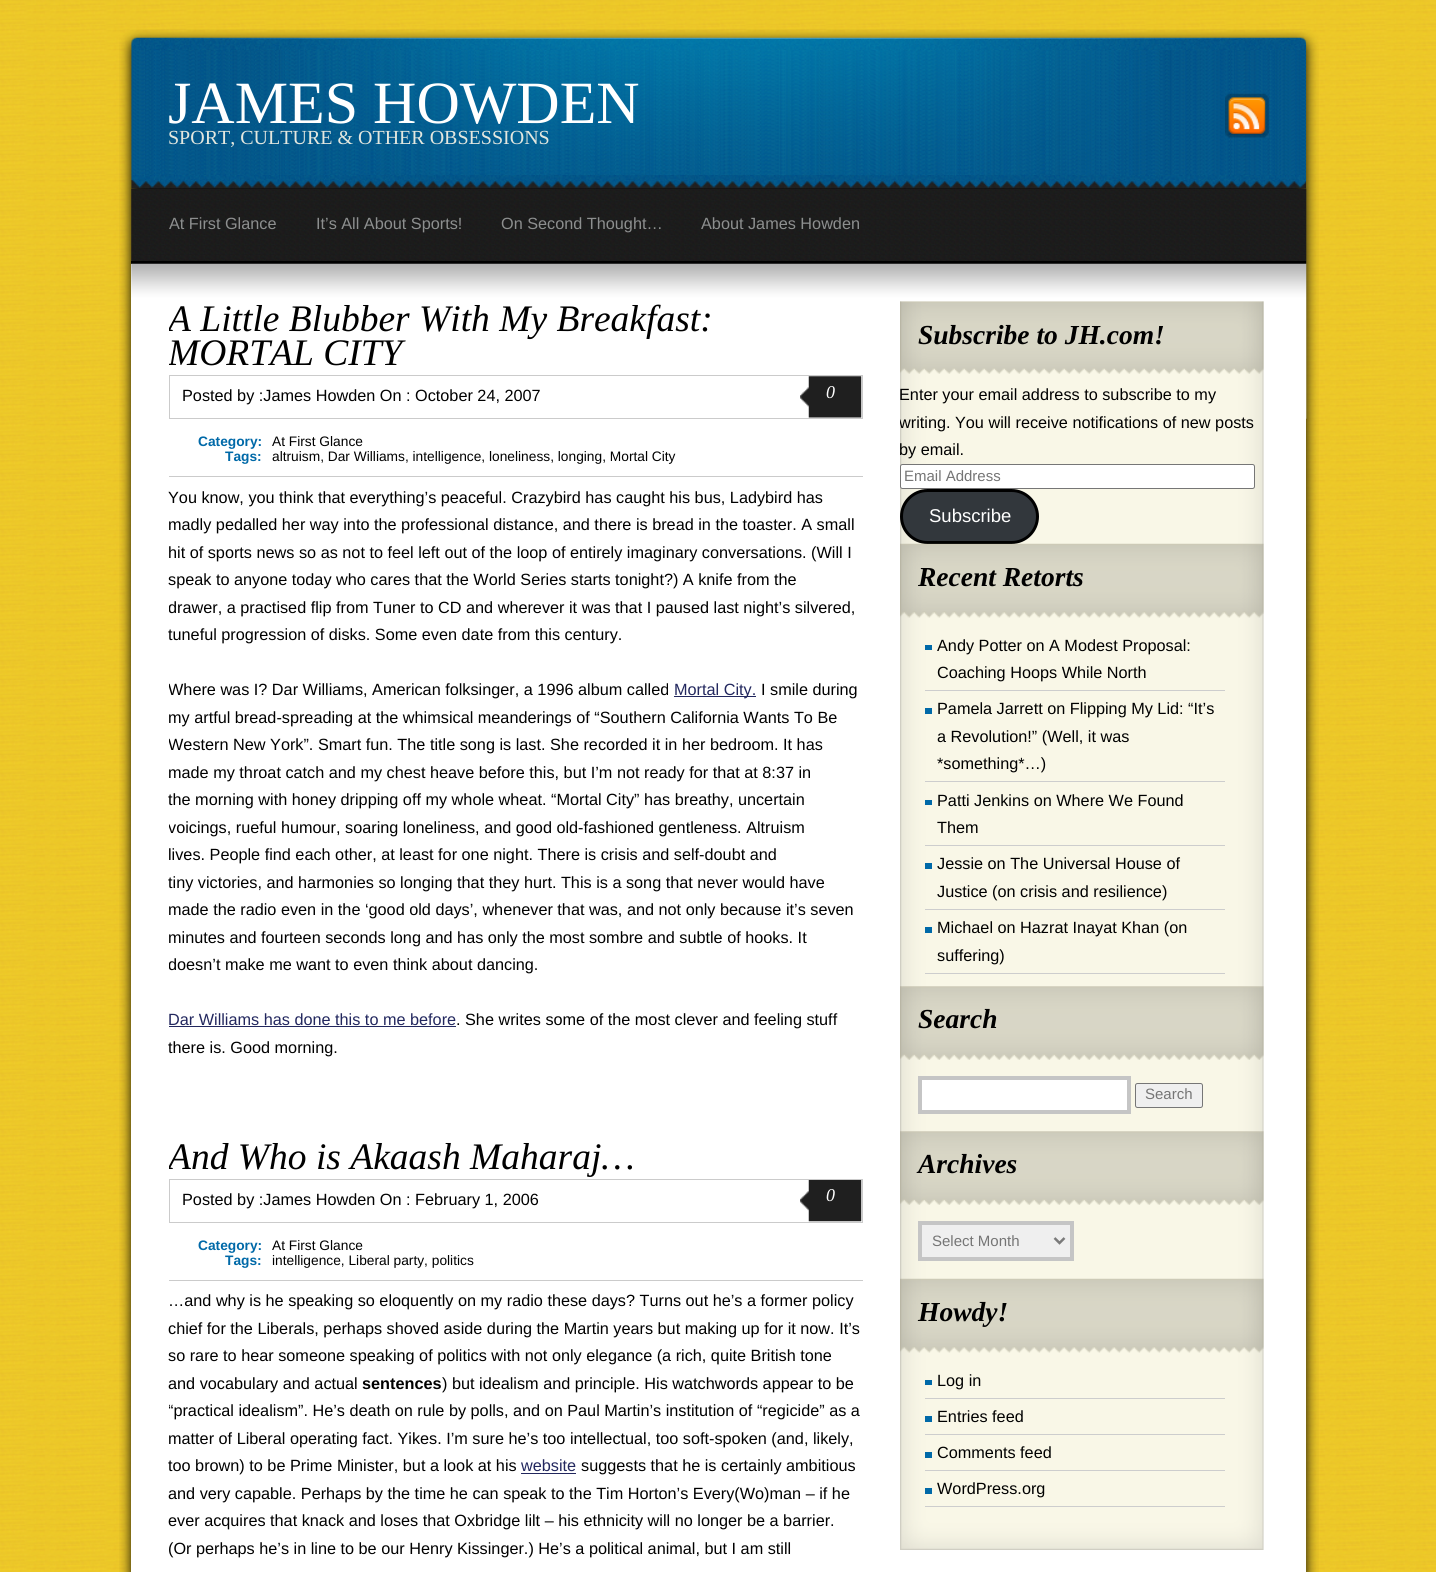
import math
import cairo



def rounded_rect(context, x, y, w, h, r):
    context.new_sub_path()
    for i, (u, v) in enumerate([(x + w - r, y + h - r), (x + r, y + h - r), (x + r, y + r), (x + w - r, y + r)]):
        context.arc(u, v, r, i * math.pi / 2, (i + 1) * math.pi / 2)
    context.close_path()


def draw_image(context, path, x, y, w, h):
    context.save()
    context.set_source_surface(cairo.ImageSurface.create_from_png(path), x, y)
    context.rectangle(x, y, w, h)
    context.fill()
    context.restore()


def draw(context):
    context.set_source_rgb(1, 1, 1)
    context.paint()
    draw_image(context, "images/1.png", 0, 0, 1436, 1572)
    draw_image(context, "images/2.png", 119, 29, 1200, 1543)
    draw_image(context, "images/3.png", 131, 37, 1176, 13)
    draw_image(context, "images/4.png", 131, 50, 1176, 125)
    draw_image(context, "images/5.png", 281, 50, 878, 125)
    draw_image(context, "images/6.png", 1225, 93, 44, 45)
    draw_image(context, "images/8.png", 131, 188, 1176, 76)
    draw_image(context, "images/7.png", 131, 175, 1176, 14)
    context.set_source_rgb(0, 0, 0)
    context.rectangle(131, 261, 1175, 3)
    context.fill()
    context.set_source_rgb(1, 1, 1)
    context.rectangle(131, 264, 1175, 1308)
    context.fill()
    draw_image(context, "images/9.png", 131, 263, 1176, 156)
    draw_image(context, "images/10.png", 800, 376, 62, 42)
    context.rectangle(169.5, 375.5, 693, 43)
    context.set_source_rgb(203 / 255, 203 / 255, 203 / 255)
    context.set_line_width(1)
    context.stroke()
    context.rectangle(169, 476, 694, 1)
    context.fill()
    context.set_source_rgb(34 / 255, 39 / 255, 94 / 255)
    context.rectangle(674, 696, 82, 1)
    context.fill()
    context.rectangle(169, 1026, 287, 1)
    context.fill()
    draw_image(context, "images/11.png", 800, 1180, 62, 42)
    context.rectangle(169.5, 1179.5, 693, 43)
    context.set_source_rgb(203 / 255, 203 / 255, 203 / 255)
    context.stroke()
    context.rectangle(169, 1280, 694, 1)
    context.fill()
    context.set_source_rgb(34 / 255, 39 / 255, 94 / 255)
    context.rectangle(521, 1473, 55, 1)
    context.fill()
    draw_image(context, "images/12.png", 900, 301, 364, 1219)
    draw_image(context, "images/13.png", 900, 301, 364, 73)
    context.set_source_rgb(1, 1, 1)
    rounded_rect(context, 900.5, 464.5, 354, 24, 2)
    context.fill_preserve()
    context.set_source_rgb(118 / 255, 118 / 255, 118 / 255)
    context.stroke()
    context.set_source_rgb(50 / 255, 55 / 255, 60 / 255)
    rounded_rect(context, 901.5, 490.5, 136, 52, 26)
    context.fill_preserve()
    context.set_source_rgb(0, 0, 0)
    context.set_line_width(3)
    context.stroke()
    draw_image(context, "images/14.png", 900, 543, 364, 75)
    context.set_source_rgb(0, 105 / 255, 168 / 255)
    context.rectangle(925, 645, 7, 5)
    context.fill()
    context.set_source_rgb(205 / 255, 205 / 255, 205 / 255)
    context.rectangle(925, 690, 300, 1)
    context.fill()
    context.set_source_rgb(0, 105 / 255, 168 / 255)
    context.rectangle(925, 708, 7, 6)
    context.fill()
    context.set_source_rgb(205 / 255, 205 / 255, 205 / 255)
    context.rectangle(925, 781, 300, 1)
    context.fill()
    context.set_source_rgb(0, 105 / 255, 168 / 255)
    context.rectangle(925, 800, 7, 5)
    context.fill()
    context.set_source_rgb(205 / 255, 205 / 255, 205 / 255)
    context.rectangle(925, 845, 300, 1)
    context.fill()
    context.set_source_rgb(0, 105 / 255, 168 / 255)
    context.rectangle(925, 863, 7, 6)
    context.fill()
    context.set_source_rgb(205 / 255, 205 / 255, 205 / 255)
    context.rectangle(925, 909, 300, 1)
    context.fill()
    context.set_source_rgb(0, 105 / 255, 168 / 255)
    context.rectangle(925, 927, 7, 6)
    context.fill()
    context.set_source_rgb(205 / 255, 205 / 255, 205 / 255)
    context.rectangle(925, 973, 300, 1)
    context.fill()
    draw_image(context, "images/15.png", 900, 986, 364, 74)
    context.set_source_rgb(1, 1, 1)
    context.rectangle(920, 1078, 209, 34)
    context.fill_preserve()
    context.set_source_rgb(197 / 255, 197 / 255, 197 / 255)
    context.set_line_width(4)
    context.stroke()
    context.set_source_rgb(239 / 255, 239 / 255, 239 / 255)
    rounded_rect(context, 1135.5, 1083.5, 67, 24, 2)
    context.fill_preserve()
    context.set_source_rgb(118 / 255, 118 / 255, 118 / 255)
    context.set_line_width(1)
    context.stroke()
    draw_image(context, "images/15.png", 900, 1131, 364, 74)
    context.set_source_rgb(239 / 255, 239 / 255, 239 / 255)
    context.rectangle(920, 1223, 152, 36)
    context.fill_preserve()
    context.set_source_rgb(197 / 255, 197 / 255, 197 / 255)
    context.set_line_width(4)
    context.stroke()
    context.new_path()
    context.move_to(1054.5, 1238)
    context.line_to(1059.5, 1243)
    context.line_to(1064.5, 1238)
    context.set_source_rgb(122 / 255, 122 / 255, 122 / 255)
    context.set_line_width(2.5)
    context.stroke()
    draw_image(context, "images/16.png", 900, 1278, 364, 75)
    context.set_source_rgb(0, 105 / 255, 168 / 255)
    context.rectangle(925, 1380, 7, 5)
    context.fill()
    context.set_source_rgb(205 / 255, 205 / 255, 205 / 255)
    context.rectangle(925, 1398, 300, 1)
    context.fill()
    context.set_source_rgb(0, 105 / 255, 168 / 255)
    context.rectangle(925, 1416, 7, 6)
    context.fill()
    context.set_source_rgb(205 / 255, 205 / 255, 205 / 255)
    context.rectangle(925, 1434, 300, 1)
    context.fill()
    context.set_source_rgb(0, 105 / 255, 168 / 255)
    context.rectangle(925, 1452, 7, 6)
    context.fill()
    context.set_source_rgb(205 / 255, 205 / 255, 205 / 255)
    context.rectangle(925, 1470, 300, 1)
    context.fill()
    context.set_source_rgb(0, 105 / 255, 168 / 255)
    context.rectangle(925, 1488, 7, 6)
    context.fill()
    context.set_source_rgb(205 / 255, 205 / 255, 205 / 255)
    context.rectangle(925, 1506, 300, 1)
    context.fill()
    draw_image(context, "images/17.png", 900, 1520, 364, 30)
    context.select_font_face("Liberation Serif")
    context.set_font_size(60)
    context.set_source_rgb(1, 1, 1)
    context.move_to(168, 123)
    context.show_text("JAMES HOWDEN")
    context.set_font_size(20)
    context.set_source_rgb(227 / 255, 231 / 255, 223 / 255)
    context.move_to(168, 144)
    context.show_text("SPORT, CULTURE & OTHER OBSESSIONS")
    context.select_font_face("Liberation Sans")
    context.set_font_size(16.25)
    context.set_source_rgb(141 / 255, 143 / 255, 143 / 255)
    context.move_to(169, 229)
    context.show_text("At First Glance")
    context.move_to(316, 229)
    context.show_text("It’s All About Sports!")
    context.move_to(501, 229)
    context.show_text("On Second Thought…")
    context.move_to(701, 229)
    context.show_text("About James Howden")
    context.save()
    context.rectangle(169, 301, 694, 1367)
    context.clip()
    context.select_font_face("Liberation Serif", cairo.FontSlant.ITALIC)
    context.set_font_size(37.5)
    context.set_source_rgb(0, 0, 0)
    context.move_to(168, 331)
    context.show_text("A Little Blubber With My Breakfast:")
    context.move_to(168, 365)
    context.show_text("MORTAL CITY")
    context.restore()
    context.set_source_rgb(0, 0, 0)
    context.move_to(182, 401)
    context.show_text("Posted by :James Howden On : October 24, 2007")
    context.select_font_face("Liberation Serif", cairo.FontSlant.ITALIC)
    context.set_font_size(18)
    context.set_source_rgb(1, 1, 1)
    context.move_to(826, 398)
    context.show_text("0")
    context.select_font_face("Liberation Sans", cairo.FontSlant.NORMAL, cairo.FontWeight.BOLD)
    context.set_font_size(13.75)
    context.set_source_rgb(0, 105 / 255, 168 / 255)
    context.move_to(198, 446)
    context.show_text("Category:")
    context.select_font_face("Liberation Sans")
    context.set_source_rgb(0, 0, 0)
    context.move_to(272, 446)
    context.show_text("At First Glance")
    context.select_font_face("Liberation Sans", cairo.FontSlant.NORMAL, cairo.FontWeight.BOLD)
    context.set_source_rgb(0, 105 / 255, 168 / 255)
    context.move_to(225, 461)
    context.show_text("Tags:")
    context.select_font_face("Liberation Sans")
    context.set_source_rgb(0, 0, 0)
    context.move_to(272, 461)
    context.show_text("altruism, Dar Williams, intelligence, loneliness, longing, Mortal City")
    context.set_font_size(16.25)
    context.move_to(168, 503)
    context.show_text("You know, you think that everything’s peaceful. Crazybird has caught his bus, Ladybird has")
    context.move_to(168, 530)
    context.show_text("madly pedalled her way into the professional distance, and there is bread in the toaster. A small")
    context.move_to(168, 558)
    context.show_text("hit of sports news so as not to feel left out of the loop of entirely imaginary conversations. (Will I")
    context.move_to(168, 585)
    context.show_text("speak to anyone today who cares that the World Series starts tonight?) A knife from the")
    context.save()
    context.rectangle(169, 471, 694, 630)
    context.clip()
    context.move_to(168, 613)
    context.show_text("drawer, a practised flip from Tuner to CD and wherever it was that I paused last night’s silvered,")
    context.restore()
    context.move_to(168, 640)
    context.show_text("tuneful progression of disks. Some even date from this century.")
    context.save()
    context.rectangle(169, 471, 694, 630)
    context.clip()
    context.move_to(168, 695)
    context.show_text("Where was I? Dar Williams, American folksinger, a 1996 album called")
    context.restore()
    context.set_source_rgb(34 / 255, 39 / 255, 94 / 255)
    context.move_to(674, 695)
    context.show_text("Mortal City.")
    context.set_source_rgb(0, 0, 0)
    context.move_to(761, 695)
    context.show_text("I smile during")
    context.move_to(168, 723)
    context.show_text("my artful bread-spreading at the whimsical meanderings of “Southern California Wants To Be")
    context.save()
    context.rectangle(169, 471, 694, 630)
    context.clip()
    context.move_to(168, 750)
    context.show_text("Western New York”. Smart fun. The title song is last. She recorded it in her bedroom. It has")
    context.restore()
    context.move_to(168, 778)
    context.show_text("made my throat catch and my chest heave before this, but I’m not ready for that at 8:37 in")
    context.move_to(168, 805)
    context.show_text("the morning with honey dripping off my whole wheat. “Mortal City” has breathy, uncertain")
    context.save()
    context.rectangle(169, 471, 694, 630)
    context.clip()
    context.move_to(168, 833)
    context.show_text("voicings, rueful humour, soaring loneliness, and good old-fashioned gentleness. Altruism")
    context.restore()
    context.move_to(168, 860)
    context.show_text("lives. People find each other, at least for one night. There is crisis and self-doubt and")
    context.move_to(168, 888)
    context.show_text("tiny victories, and harmonies so longing that they hurt. This is a song that never would have")
    context.move_to(168, 915)
    context.show_text("made the radio even in the ‘good old days’, whenever that was, and not only because it’s seven")
    context.move_to(168, 943)
    context.show_text("minutes and fourteen seconds long and has only the most sombre and subtle of hooks. It")
    context.save()
    context.rectangle(169, 471, 694, 630)
    context.clip()
    context.move_to(168, 970)
    context.show_text("doesn’t make me want to even think about dancing.")
    context.restore()
    context.set_source_rgb(34 / 255, 39 / 255, 94 / 255)
    context.move_to(168, 1025)
    context.show_text("Dar Williams has done this to me before")
    context.set_source_rgb(0, 0, 0)
    context.move_to(456, 1025)
    context.show_text(". She writes some of the most clever and feeling stuff")
    context.move_to(168, 1053)
    context.show_text("there is. Good morning.")
    context.save()
    context.rectangle(169, 301, 694, 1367)
    context.clip()
    context.select_font_face("Liberation Serif", cairo.FontSlant.ITALIC)
    context.set_font_size(37.5)
    context.move_to(168, 1169)
    context.show_text("And Who is Akaash Maharaj…")
    context.restore()
    context.move_to(182, 1205)
    context.show_text("Posted by :James Howden On : February 1, 2006")
    context.select_font_face("Liberation Serif", cairo.FontSlant.ITALIC)
    context.set_font_size(18)
    context.set_source_rgb(1, 1, 1)
    context.move_to(826, 1201)
    context.show_text("0")
    context.select_font_face("Liberation Sans", cairo.FontSlant.NORMAL, cairo.FontWeight.BOLD)
    context.set_font_size(13.75)
    context.set_source_rgb(0, 105 / 255, 168 / 255)
    context.move_to(198, 1250)
    context.show_text("Category:")
    context.select_font_face("Liberation Sans")
    context.set_source_rgb(0, 0, 0)
    context.move_to(272, 1250)
    context.show_text("At First Glance")
    context.select_font_face("Liberation Sans", cairo.FontSlant.NORMAL, cairo.FontWeight.BOLD)
    context.set_source_rgb(0, 105 / 255, 168 / 255)
    context.move_to(225, 1265)
    context.show_text("Tags:")
    context.select_font_face("Liberation Sans")
    context.set_source_rgb(0, 0, 0)
    context.move_to(272, 1265)
    context.show_text("intelligence, Liberal party, politics")
    context.set_font_size(16.25)
    context.move_to(168, 1306)
    context.show_text("…and why is he speaking so eloquently on my radio these days? Turns out he’s a former policy")
    context.move_to(168, 1334)
    context.show_text("chief for the Liberals, perhaps shoved aside during the Martin years but making up for it now. It’s")
    context.move_to(168, 1361)
    context.show_text("so rare to hear someone speaking of politics with not only elegance (a rich, quite British tone")
    context.move_to(168, 1389)
    context.show_text("and vocabulary and actual")
    context.select_font_face("Liberation Sans", cairo.FontSlant.NORMAL, cairo.FontWeight.BOLD)
    context.move_to(362, 1389)
    context.show_text("sentences")
    context.select_font_face("Liberation Sans")
    context.move_to(442, 1389)
    context.show_text(") but idealism and principle. His watchwords appear to be")
    context.save()
    context.rectangle(169, 1275, 694, 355)
    context.clip()
    context.move_to(168, 1416)
    context.show_text("“practical idealism”. He’s death on rule by polls, and on Paul Martin’s institution of “regicide” as a")
    context.restore()
    context.move_to(168, 1444)
    context.show_text("matter of Liberal operating fact. Yikes. I’m sure he’s too intellectual, too soft-spoken (and, likely,")
    context.move_to(168, 1471)
    context.show_text("too brown) to be Prime Minister, but a look at his")
    context.set_source_rgb(34 / 255, 39 / 255, 94 / 255)
    context.move_to(521, 1471)
    context.show_text("website")
    context.set_source_rgb(0, 0, 0)
    context.move_to(581, 1471)
    context.show_text("suggests that he is certainly ambitious")
    context.move_to(168, 1499)
    context.show_text("and very capable. Perhaps by the time he can speak to the Tim Horton’s Every(Wo)man – if he")
    context.move_to(168, 1526)
    context.show_text("ever acquires that knack and loses that Oxbridge lilt – his ethnicity will no longer be a barrier.")
    context.move_to(168, 1554)
    context.show_text("(Or perhaps he’s in line to be our Henry Kissinger.) He’s a political animal, but I am still")
    context.select_font_face("Liberation Serif", cairo.FontSlant.ITALIC, cairo.FontWeight.BOLD)
    context.set_font_size(27.5)
    context.move_to(918, 344)
    context.show_text("Subscribe to JH.com!")
    context.select_font_face("Liberation Sans")
    context.set_font_size(16.25)
    context.move_to(899, 400)
    context.show_text("Enter your email address to subscribe to my")
    context.save()
    context.rectangle(900, 301, 364, 243)
    context.clip()
    context.move_to(899, 428)
    context.show_text("writing. You will receive notifications of new posts")
    context.restore()
    context.move_to(899, 455)
    context.show_text("by email.")
    context.set_font_size(15)
    context.set_source_rgb(117 / 255, 117 / 255, 117 / 255)
    context.move_to(904, 481)
    context.show_text("Email Address")
    context.set_font_size(18.5)
    context.set_source_rgb(1, 1, 1)
    context.move_to(929, 522)
    context.show_text("Subscribe")
    context.select_font_face("Liberation Serif", cairo.FontSlant.ITALIC, cairo.FontWeight.BOLD)
    context.set_font_size(27.5)
    context.set_source_rgb(0, 0, 0)
    context.move_to(918, 586)
    context.show_text("Recent Retorts")
    context.select_font_face("Liberation Sans")
    context.set_font_size(16.25)
    context.move_to(937, 651)
    context.show_text("Andy Potter on A Modest Proposal:")
    context.move_to(937, 678)
    context.show_text("Coaching Hoops While North")
    context.move_to(937, 714)
    context.show_text("Pamela Jarrett on Flipping My Lid: “It’s")
    context.move_to(937, 742)
    context.show_text("a Revolution!” (Well, it was")
    context.move_to(937, 769)
    context.show_text("*something*…)")
    context.move_to(937, 806)
    context.show_text("Patti Jenkins on Where We Found")
    context.move_to(937, 833)
    context.show_text("Them")
    context.move_to(937, 869)
    context.show_text("Jessie on The Universal House of")
    context.move_to(937, 897)
    context.show_text("Justice (on crisis and resilience)")
    context.move_to(937, 933)
    context.show_text("Michael on Hazrat Inayat Khan (on")
    context.move_to(937, 961)
    context.show_text("suffering)")
    context.select_font_face("Liberation Serif", cairo.FontSlant.ITALIC, cairo.FontWeight.BOLD)
    context.set_font_size(27.5)
    context.move_to(918, 1028)
    context.show_text("Search")
    context.select_font_face("Liberation Sans")
    context.set_font_size(15)
    context.set_source_rgb(117 / 255, 117 / 255, 117 / 255)
    context.move_to(1145, 1099)
    context.show_text("Search")
    context.select_font_face("Liberation Serif", cairo.FontSlant.ITALIC, cairo.FontWeight.BOLD)
    context.set_font_size(27.5)
    context.set_source_rgb(0, 0, 0)
    context.move_to(918, 1173)
    context.show_text("Archives")
    context.select_font_face("Liberation Sans")
    context.set_font_size(15)
    context.set_source_rgb(117 / 255, 117 / 255, 117 / 255)
    context.move_to(932, 1246)
    context.show_text("Select Month")
    context.select_font_face("Liberation Serif", cairo.FontSlant.ITALIC, cairo.FontWeight.BOLD)
    context.set_font_size(27.5)
    context.set_source_rgb(0, 0, 0)
    context.move_to(918, 1321)
    context.show_text("Howdy!")
    context.select_font_face("Liberation Sans")
    context.set_font_size(16.25)
    context.move_to(937, 1386)
    context.show_text("Log in")
    context.move_to(937, 1422)
    context.show_text("Entries feed")
    context.move_to(937, 1458)
    context.show_text("Comments feed")
    context.move_to(937, 1494)
    context.show_text("WordPress.org")


surface = cairo.ImageSurface(cairo.Format.RGB24, 1436, 1572)
context = cairo.Context(surface)
options = cairo.FontOptions()
options.set_hint_metrics(cairo.HintMetrics.OFF)
options.set_hint_style(cairo.HintStyle.NONE)
context.set_font_options(options)
context.set_miter_limit(4)
draw(context)
surface.write_to_png("out.png")
